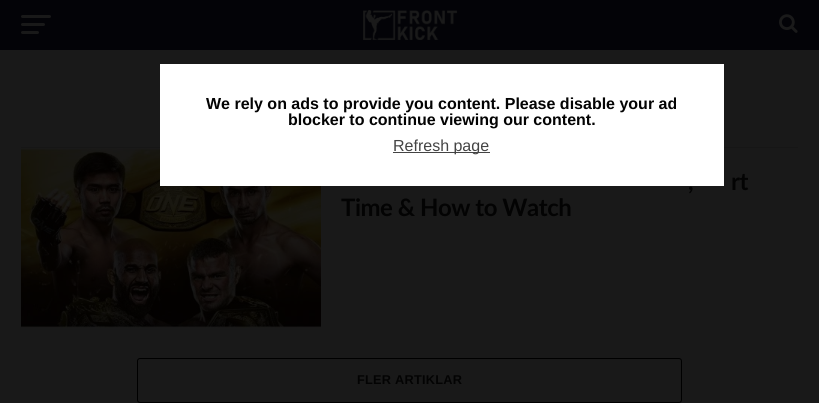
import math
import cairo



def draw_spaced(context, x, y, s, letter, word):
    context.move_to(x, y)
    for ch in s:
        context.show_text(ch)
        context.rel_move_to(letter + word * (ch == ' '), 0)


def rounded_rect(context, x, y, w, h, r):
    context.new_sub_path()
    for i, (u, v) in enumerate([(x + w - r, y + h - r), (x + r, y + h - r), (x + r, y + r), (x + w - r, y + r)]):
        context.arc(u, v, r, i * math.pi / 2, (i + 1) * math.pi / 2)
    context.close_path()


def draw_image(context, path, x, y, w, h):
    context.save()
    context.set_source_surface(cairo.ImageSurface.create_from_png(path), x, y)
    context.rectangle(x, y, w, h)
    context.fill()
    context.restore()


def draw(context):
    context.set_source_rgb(25 / 255, 25 / 255, 25 / 255)
    context.paint()
    context.set_source_rgb(22 / 255, 22 / 255, 22 / 255)
    context.rectangle(21, 147, 777, 1)
    context.fill()
    draw_image(context, "images/3.png", 21, 148, 300, 180)
    context.set_source_rgb(1, 1, 1)
    context.rectangle(160, 64, 564, 122)
    context.fill()
    context.set_source_rgb(68 / 255, 68 / 255, 68 / 255)
    context.rectangle(393, 152, 97, 1)
    context.fill()
    context.set_source_rgb(3 / 255, 3 / 255, 7 / 255)
    context.rectangle(0, 0, 819, 50)
    context.fill()
    context.set_source_rgb(25 / 255, 25 / 255, 25 / 255)
    rounded_rect(context, 21, 15, 30, 3, 1.5)
    context.fill()
    rounded_rect(context, 21, 23, 24, 3, 1.5)
    context.fill()
    rounded_rect(context, 21, 31, 18, 3, 1.5)
    context.fill()
    draw_image(context, "images/1.png", 363, 10, 95, 30)
    draw_image(context, "images/2.png", 779, 14, 19, 19)
    rounded_rect(context, 137.5, 358.5, 544, 44, 2.5)
    context.set_source_rgb(0, 0, 0)
    context.set_line_width(1)
    context.stroke()
    context.select_font_face("Liberation Sans", cairo.FontSlant.NORMAL, cairo.FontWeight.BOLD)
    context.set_font_size(16)
    context.set_source_rgb(3 / 255, 3 / 255, 3 / 255)
    context.move_to(206, 109)
    context.show_text("We rely on ads to provide you content. Please disable your ad")
    context.move_to(288, 125)
    context.show_text("blocker to continue viewing our content.")
    context.select_font_face("Liberation Sans")
    context.set_source_rgb(68 / 255, 68 / 255, 68 / 255)
    context.move_to(393, 151)
    context.show_text("Refresh page")
    context.select_font_face("Lato", cairo.FontSlant.NORMAL, cairo.FontWeight.BOLD)
    context.set_font_size(24)
    context.set_source_rgb(3 / 255, 3 / 255, 3 / 255)
    draw_spaced(context, 688, 190, ",", -0.5, 0)
    draw_spaced(context, 731, 190, "rt", -0.5, 0)
    draw_spaced(context, 341, 216, "Time & How to Watch", -0.5, 0)
    context.select_font_face("Liberation Sans", cairo.FontSlant.NORMAL, cairo.FontWeight.BOLD)
    context.set_font_size(12.75)
    draw_spaced(context, 357, 384, "FLER ARTIKLAR", 0.25, 0)


surface = cairo.ImageSurface(cairo.Format.RGB24, 819, 403)
context = cairo.Context(surface)
options = cairo.FontOptions()
options.set_hint_metrics(cairo.HintMetrics.OFF)
options.set_hint_style(cairo.HintStyle.NONE)
context.set_font_options(options)
context.set_miter_limit(4)
draw(context)
surface.write_to_png("out.png")
